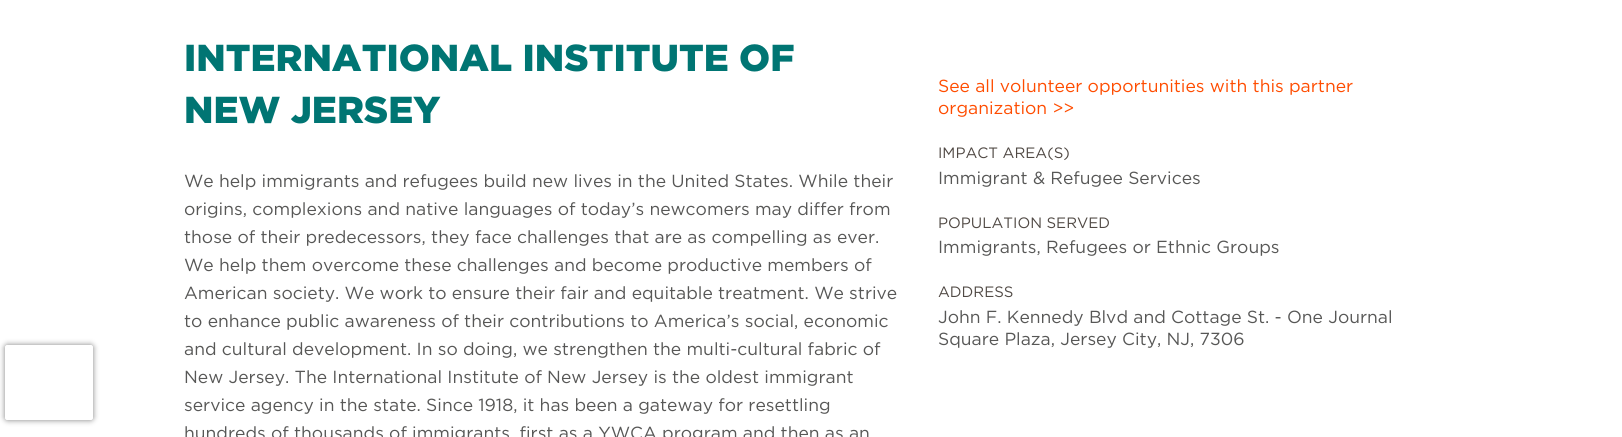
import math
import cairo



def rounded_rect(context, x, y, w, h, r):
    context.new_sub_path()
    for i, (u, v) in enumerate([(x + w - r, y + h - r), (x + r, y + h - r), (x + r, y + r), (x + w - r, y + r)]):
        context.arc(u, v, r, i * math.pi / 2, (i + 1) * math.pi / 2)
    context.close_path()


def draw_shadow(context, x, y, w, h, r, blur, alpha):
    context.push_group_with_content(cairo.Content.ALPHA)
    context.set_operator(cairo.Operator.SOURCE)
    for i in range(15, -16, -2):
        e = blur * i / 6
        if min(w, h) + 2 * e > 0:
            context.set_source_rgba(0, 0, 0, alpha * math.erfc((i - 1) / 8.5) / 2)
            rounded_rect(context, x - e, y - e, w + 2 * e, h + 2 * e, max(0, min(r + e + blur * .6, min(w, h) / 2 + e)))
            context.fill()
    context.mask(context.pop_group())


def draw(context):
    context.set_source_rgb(1, 1, 1)
    context.paint()
    context.save()
    context.set_fill_rule(cairo.FillRule.EVEN_ODD)
    context.new_path()
    context.move_to(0, 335)
    context.line_to(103, 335)
    context.line_to(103, 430)
    context.line_to(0, 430)
    context.close_path()
    context.move_to(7.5, 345)
    context.line_to(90.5, 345)
    context.curve_to(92, 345, 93, 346, 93, 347.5)
    context.line_to(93, 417.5)
    context.curve_to(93, 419, 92, 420, 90.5, 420)
    context.line_to(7.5, 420)
    context.curve_to(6, 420, 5, 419, 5, 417.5)
    context.line_to(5, 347.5)
    context.curve_to(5, 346, 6, 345, 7.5, 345)
    context.close_path()
    context.clip()
    context.set_source_rgb(128 / 255, 128 / 255, 128 / 255)
    draw_shadow(context, 5, 345, 88, 75, 2.5, 3, 1)
    context.restore()
    context.select_font_face("Gotham Black")
    context.set_font_size(37.5)
    context.set_source_rgb(0, 117 / 255, 115 / 255)
    context.move_to(184, 71)
    context.show_text("INTERNATIONAL INSTITUTE OF")
    context.move_to(184, 123)
    context.show_text("NEW JERSEY")
    context.select_font_face("Gotham")
    context.set_font_size(17.5)
    context.set_source_rgb(87 / 255, 87 / 255, 86 / 255)
    context.move_to(184, 187)
    context.show_text("We help immigrants and refugees build new lives in the United States. While their")
    context.move_to(184, 215)
    context.show_text("origins, complexions and native languages of today’s newcomers may differ from")
    context.move_to(184, 243)
    context.show_text("those of their predecessors, they face challenges that are as compelling as ever.")
    context.move_to(184, 271)
    context.show_text("We help them overcome these challenges and become productive members of")
    context.move_to(184, 299)
    context.show_text("American society. We work to ensure their fair and equitable treatment. We strive")
    context.move_to(184, 327)
    context.show_text("to enhance public awareness of their contributions to America’s social, economic")
    context.move_to(184, 355)
    context.show_text("and cultural development. In so doing, we strengthen the multi-cultural fabric of")
    context.move_to(184, 383)
    context.show_text("New Jersey. The International Institute of New Jersey is the oldest immigrant")
    context.move_to(184, 411)
    context.show_text("service agency in the state. Since 1918, it has been a gateway for resettling")
    context.move_to(184, 439)
    context.show_text("hundreds of thousands of immigrants, first as a YWCA program and then as an")
    context.set_source_rgb(1, 76 / 255, 0)
    context.move_to(938, 92)
    context.show_text("See all volunteer opportunities with this partner")
    context.move_to(938, 114)
    context.show_text("organization >>")
    context.set_font_size(15)
    context.set_source_rgb(80 / 255, 73 / 255, 68 / 255)
    context.move_to(938, 158)
    context.show_text("IMPACT AREA(S)")
    context.set_font_size(17.5)
    context.set_source_rgb(87 / 255, 87 / 255, 86 / 255)
    context.move_to(938, 184)
    context.show_text("Immigrant & Refugee Services")
    context.set_font_size(15)
    context.set_source_rgb(80 / 255, 73 / 255, 68 / 255)
    context.move_to(938, 228)
    context.show_text("POPULATION SERVED")
    context.set_font_size(17.5)
    context.set_source_rgb(87 / 255, 87 / 255, 86 / 255)
    context.move_to(938, 253)
    context.show_text("Immigrants, Refugees or Ethnic Groups")
    context.set_font_size(15)
    context.set_source_rgb(80 / 255, 73 / 255, 68 / 255)
    context.move_to(938, 297)
    context.show_text("ADDRESS")
    context.set_font_size(17.5)
    context.set_source_rgb(87 / 255, 87 / 255, 86 / 255)
    context.move_to(938, 323)
    context.show_text("John F. Kennedy Blvd and Cottage St. - One Journal")
    context.move_to(938, 345)
    context.show_text("Square Plaza, Jersey City, NJ, 7306")


surface = cairo.ImageSurface(cairo.Format.RGB24, 1622, 437)
context = cairo.Context(surface)
options = cairo.FontOptions()
options.set_hint_metrics(cairo.HintMetrics.OFF)
options.set_hint_style(cairo.HintStyle.NONE)
context.set_font_options(options)
context.set_miter_limit(4)
draw(context)
surface.write_to_png("out.png")
